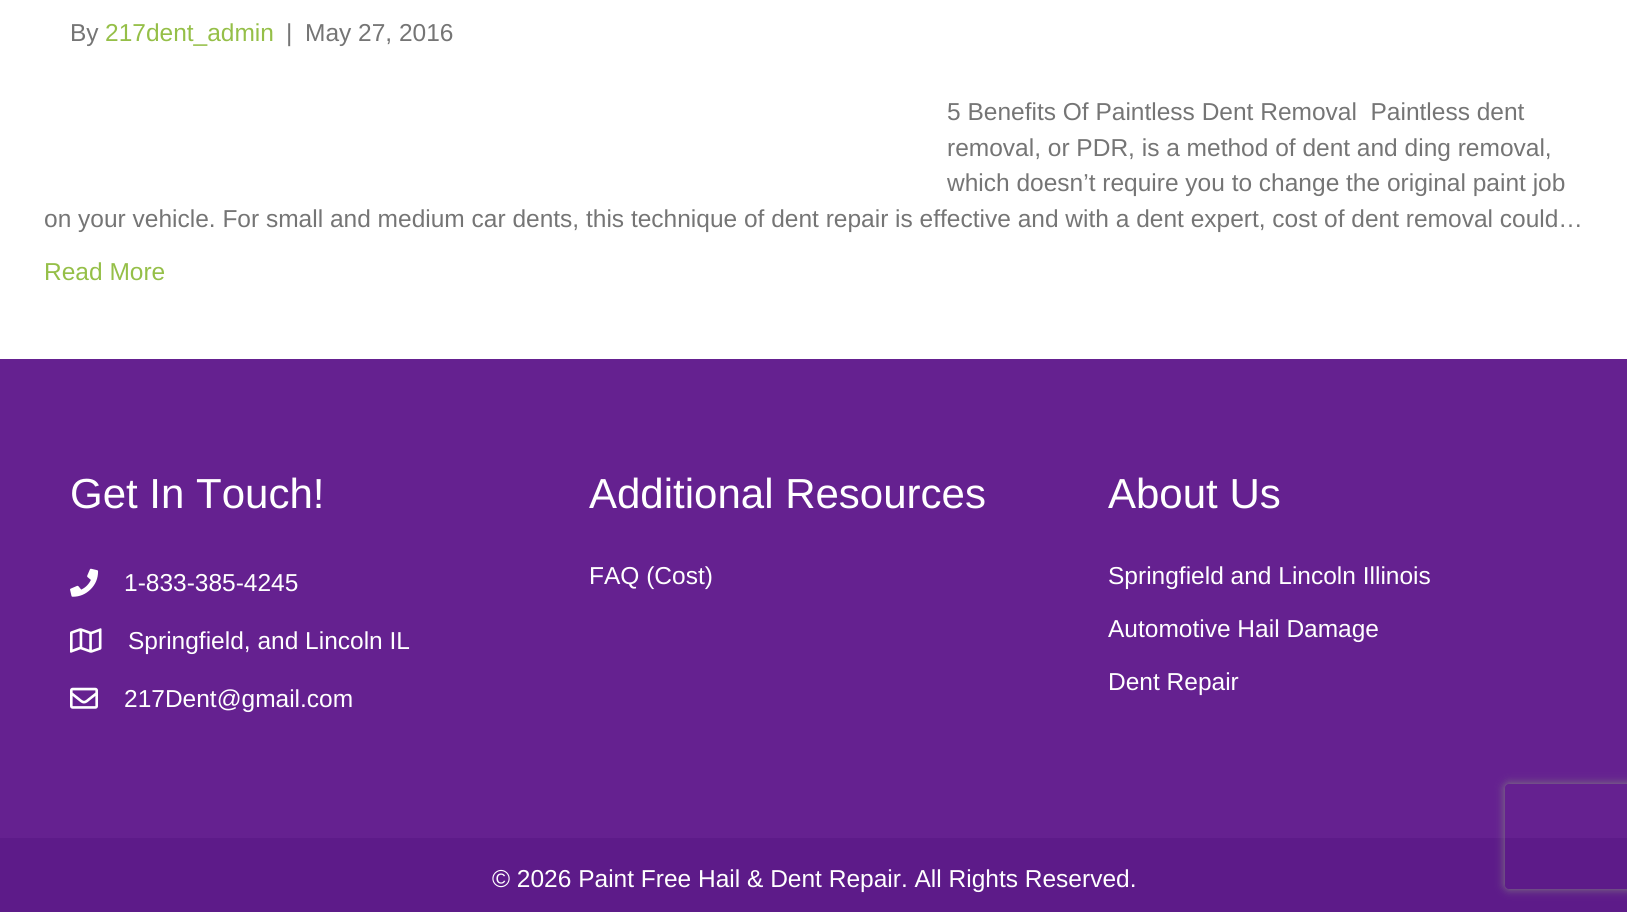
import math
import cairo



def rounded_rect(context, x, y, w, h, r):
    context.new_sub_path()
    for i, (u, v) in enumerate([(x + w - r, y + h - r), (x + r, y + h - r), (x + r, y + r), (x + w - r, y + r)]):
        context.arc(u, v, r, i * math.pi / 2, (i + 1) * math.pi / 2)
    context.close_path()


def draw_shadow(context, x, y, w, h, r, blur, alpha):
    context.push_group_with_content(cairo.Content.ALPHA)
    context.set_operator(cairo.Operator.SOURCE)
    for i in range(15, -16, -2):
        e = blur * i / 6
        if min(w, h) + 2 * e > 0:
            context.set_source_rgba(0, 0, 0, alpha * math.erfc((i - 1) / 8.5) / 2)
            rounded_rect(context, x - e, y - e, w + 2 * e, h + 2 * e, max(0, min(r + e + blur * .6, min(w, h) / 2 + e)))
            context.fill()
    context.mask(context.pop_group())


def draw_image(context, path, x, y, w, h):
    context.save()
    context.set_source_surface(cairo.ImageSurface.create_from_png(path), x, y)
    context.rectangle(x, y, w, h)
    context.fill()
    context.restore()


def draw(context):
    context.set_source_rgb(1, 1, 1)
    context.paint()
    context.set_source_rgb(101 / 255, 33 / 255, 144 / 255)
    context.rectangle(0, 359, 1627, 479)
    context.fill()
    draw_image(context, "images/1.png", 70, 568, 29, 29)
    draw_image(context, "images/2.png", 70, 628, 32, 25)
    draw_image(context, "images/3.png", 70, 687, 28, 22)
    context.set_source_rgb(93 / 255, 27 / 255, 137 / 255)
    context.rectangle(0, 838, 1627, 74)
    context.fill()
    context.save()
    context.set_fill_rule(cairo.FillRule.EVEN_ODD)
    context.new_path()
    context.move_to(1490, 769)
    context.line_to(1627, 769)
    context.line_to(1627, 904)
    context.line_to(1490, 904)
    context.close_path()
    context.move_to(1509, 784)
    context.line_to(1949, 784)
    context.curve_to(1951, 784, 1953, 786, 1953, 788)
    context.line_to(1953, 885)
    context.curve_to(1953, 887, 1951, 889, 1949, 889)
    context.line_to(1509, 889)
    context.curve_to(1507, 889, 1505, 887, 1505, 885)
    context.line_to(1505, 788)
    context.curve_to(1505, 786, 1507, 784, 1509, 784)
    context.close_path()
    context.clip()
    context.set_source_rgb(128 / 255, 128 / 255, 128 / 255)
    draw_shadow(context, 1505, 784, 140, 105, 4, 4.5, 1)
    context.restore()
    context.select_font_face("Liberation Sans")
    context.set_font_size(24.5)
    context.set_source_rgb(117 / 255, 117 / 255, 117 / 255)
    context.move_to(70, 41)
    context.show_text("By")
    context.set_source_rgb(149 / 255, 191 / 255, 72 / 255)
    context.move_to(105, 41)
    context.show_text("217dent_admin")
    context.set_source_rgb(117 / 255, 117 / 255, 117 / 255)
    context.move_to(286, 41)
    context.show_text("|")
    context.move_to(305, 41)
    context.show_text("May 27, 2016")
    context.move_to(947, 120)
    context.show_text("5 Benefits Of Paintless Dent Removal  Paintless dent")
    context.move_to(947, 156)
    context.show_text("removal, or PDR, is a method of dent and ding removal,")
    context.move_to(947, 191)
    context.show_text("which doesn’t require you to change the original paint job")
    context.move_to(44, 227)
    context.show_text("on your vehicle. For small and medium car dents, this technique of dent repair is effective and with a dent expert, cost of dent removal could…")
    context.set_source_rgb(149 / 255, 191 / 255, 72 / 255)
    context.move_to(44, 280)
    context.show_text("Read More")
    context.set_font_size(42)
    context.set_source_rgb(1, 1, 1)
    context.move_to(70, 508)
    context.show_text("Get In Touch!")
    context.set_font_size(24.5)
    context.move_to(124, 591)
    context.show_text("1-833-385-4245")
    context.move_to(128, 649)
    context.show_text("Springfield, and Lincoln IL")
    context.move_to(124, 707)
    context.show_text("217Dent@gmail.com")
    context.set_font_size(42)
    context.move_to(589, 508)
    context.show_text("Additional Resources")
    context.set_font_size(24.5)
    context.move_to(589, 584)
    context.show_text("FAQ (Cost)")
    context.set_font_size(42)
    context.move_to(1108, 508)
    context.show_text("About Us")
    context.set_font_size(24.5)
    context.move_to(1108, 584)
    context.show_text("Springfield and Lincoln Illinois")
    context.move_to(1108, 637)
    context.show_text("Automotive Hail Damage")
    context.move_to(1108, 690)
    context.show_text("Dent Repair")
    context.move_to(492, 887)
    context.show_text("© 2026 Paint Free Hail & Dent Repair. All Rights Reserved.")


surface = cairo.ImageSurface(cairo.Format.RGB24, 1627, 912)
context = cairo.Context(surface)
options = cairo.FontOptions()
options.set_hint_metrics(cairo.HintMetrics.OFF)
options.set_hint_style(cairo.HintStyle.NONE)
context.set_font_options(options)
context.set_miter_limit(4)
draw(context)
surface.write_to_png("out.png")
